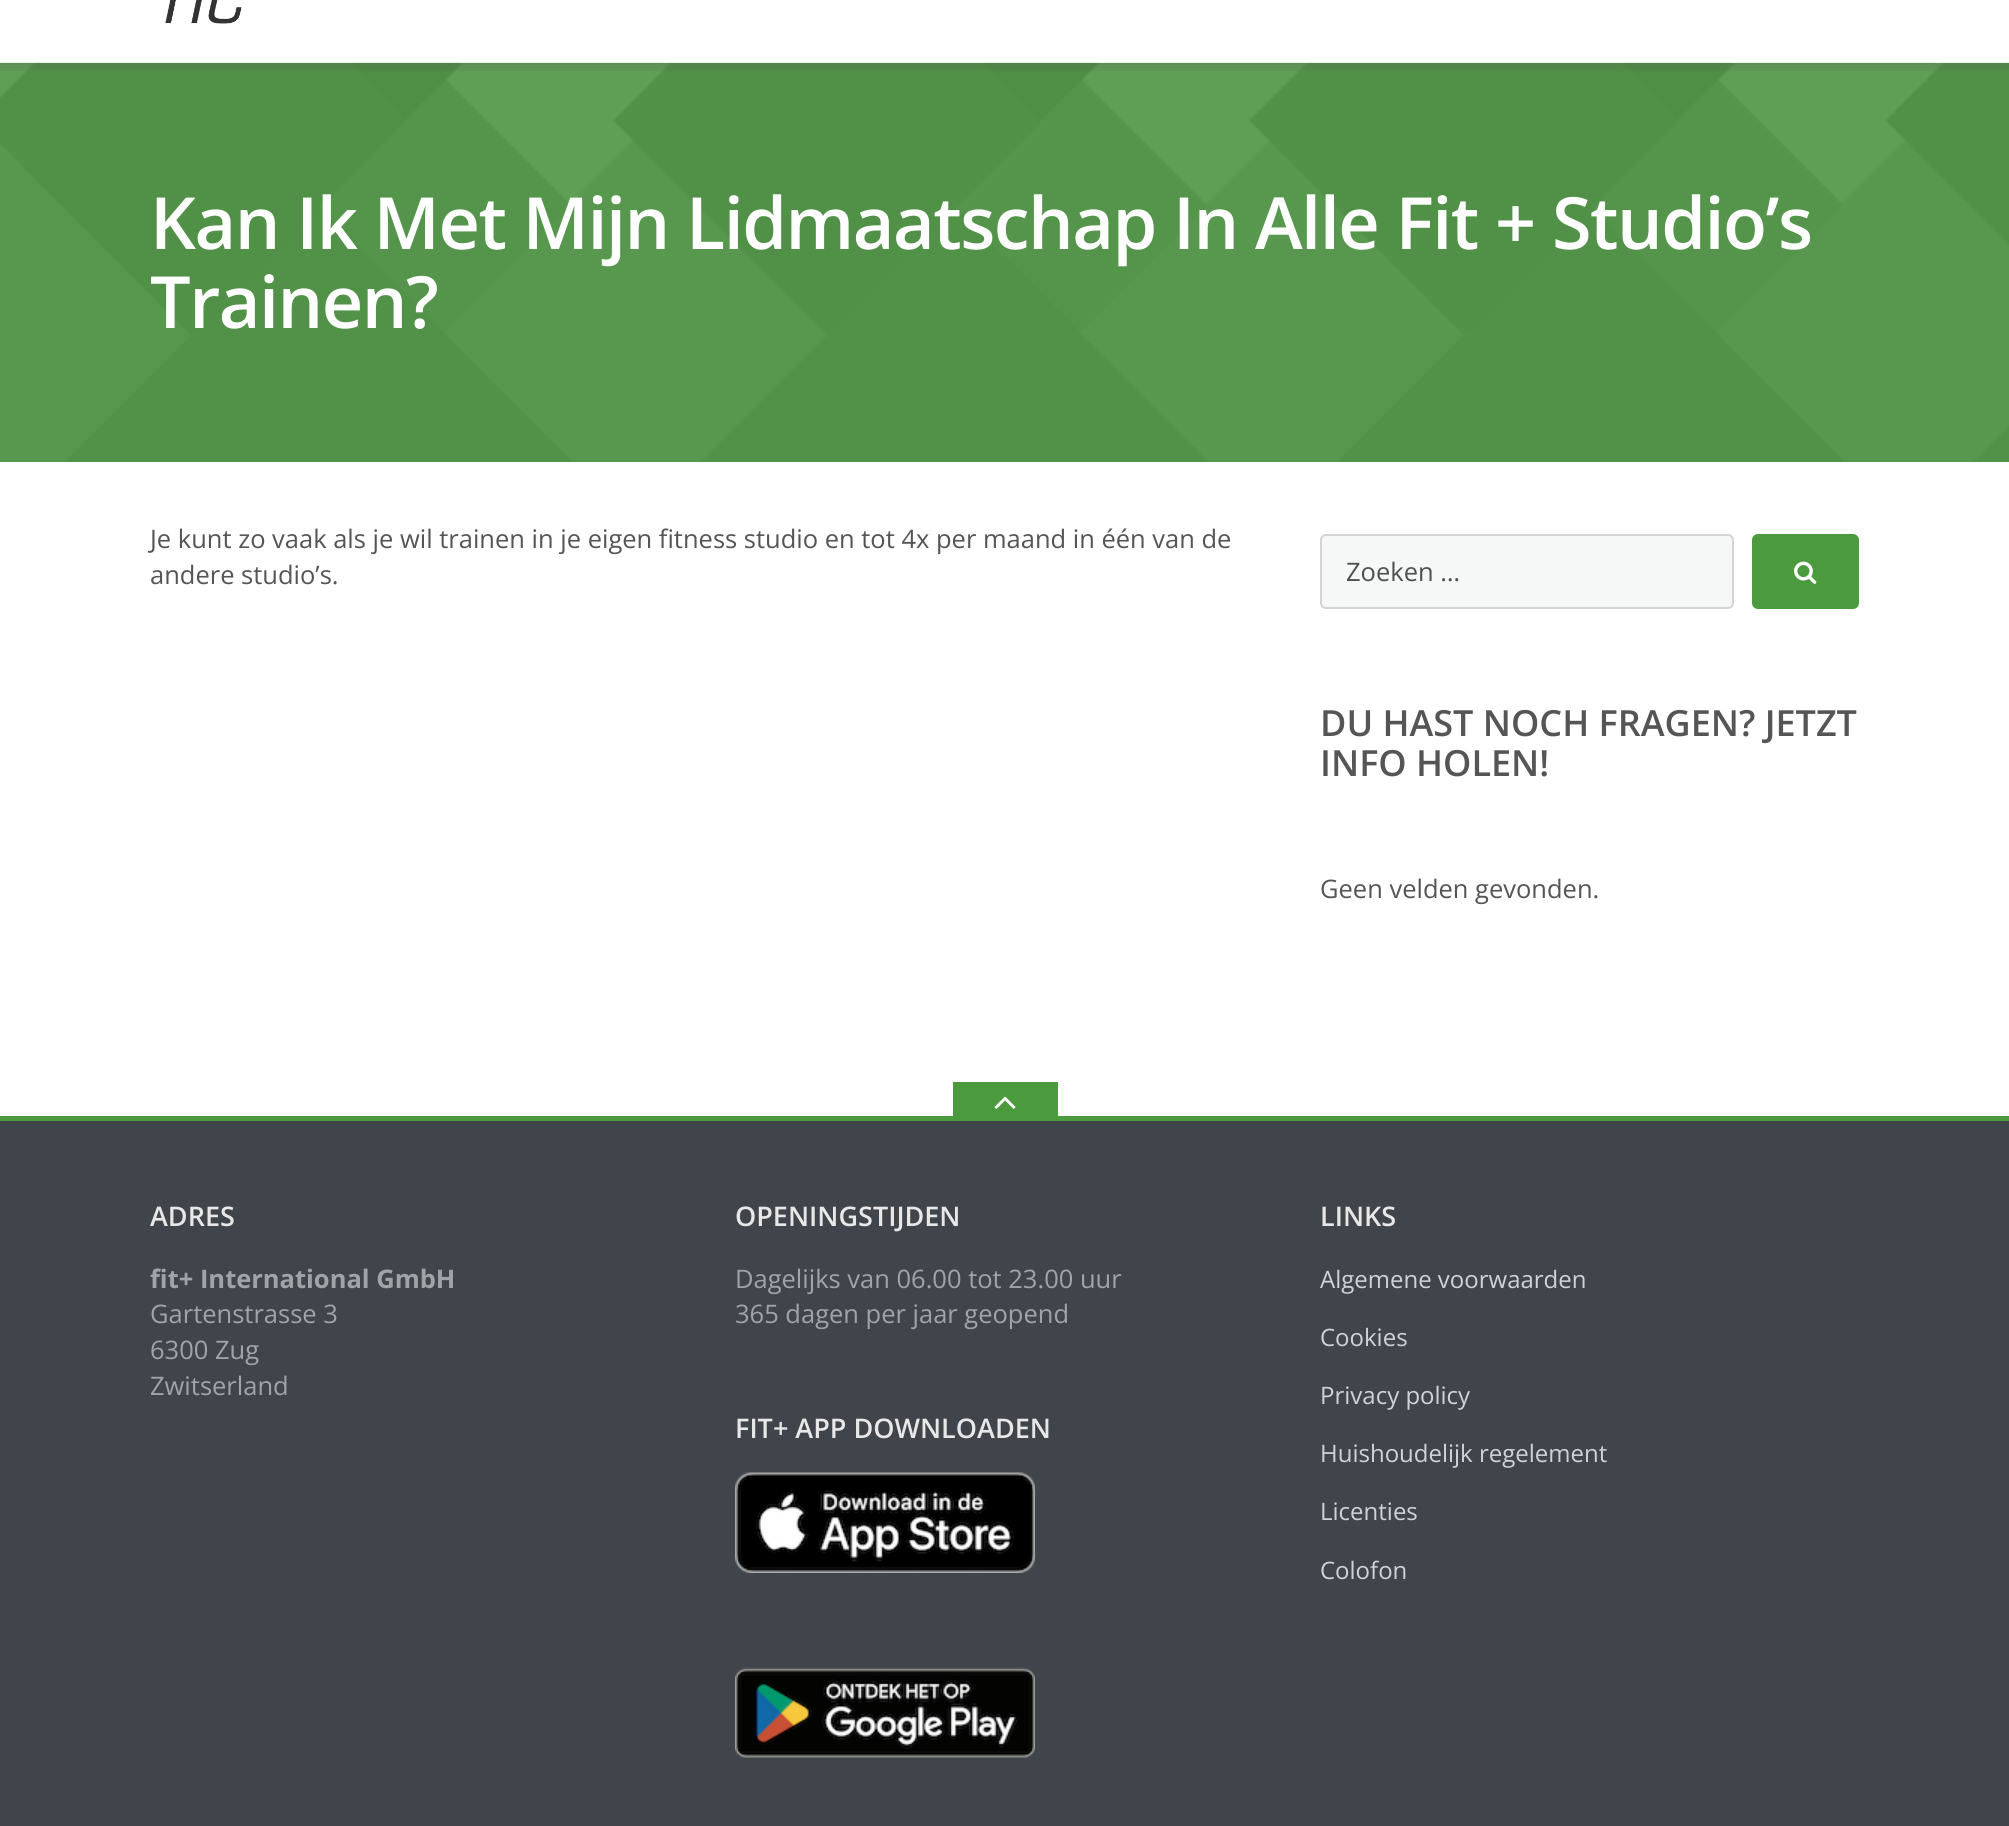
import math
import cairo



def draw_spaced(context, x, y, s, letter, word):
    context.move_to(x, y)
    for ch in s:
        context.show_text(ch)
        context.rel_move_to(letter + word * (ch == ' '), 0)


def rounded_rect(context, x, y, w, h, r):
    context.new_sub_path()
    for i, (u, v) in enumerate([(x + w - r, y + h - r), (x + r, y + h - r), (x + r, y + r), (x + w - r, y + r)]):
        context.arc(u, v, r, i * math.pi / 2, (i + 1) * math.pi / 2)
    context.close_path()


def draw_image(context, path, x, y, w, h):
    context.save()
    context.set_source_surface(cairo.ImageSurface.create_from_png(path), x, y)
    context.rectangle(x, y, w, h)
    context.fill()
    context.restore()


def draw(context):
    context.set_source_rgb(1, 1, 1)
    context.paint()
    draw_image(context, "images/1.png", 165, 0, 77, 24)
    context.set_source_rgb(75 / 255, 155 / 255, 62 / 255)
    context.rectangle(0, 63, 2009, 399)
    context.fill()
    draw_image(context, "images/3.png", 0, 63, 2009, 399)
    draw_image(context, "images/2.png", 0, 62, 2009, 9)
    context.set_source_rgb(246 / 255, 247 / 255, 247 / 255)
    rounded_rect(context, 1321, 535, 412, 73, 5)
    context.fill_preserve()
    context.set_source_rgb(212 / 255, 212 / 255, 212 / 255)
    context.stroke()
    context.set_source_rgb(75 / 255, 155 / 255, 62 / 255)
    rounded_rect(context, 1752, 534, 107, 75, 6)
    context.fill()
    draw_image(context, "images/4.png", 1794, 561, 23, 23)
    context.rectangle(0, 1116, 2009, 5)
    context.fill()
    context.rectangle(953, 1082, 105, 34)
    context.fill()
    draw_image(context, "images/5.png", 994, 1096, 22, 13)
    context.set_source_rgb(64 / 255, 69 / 255, 75 / 255)
    context.rectangle(0, 1121, 2009, 705)
    context.fill()
    draw_image(context, "images/6.png", 735, 1472, 300, 101)
    draw_image(context, "images/7.png", 735, 1667, 300, 91)
    context.select_font_face("Open Sans SemiBold")
    context.set_font_size(72)
    context.set_source_rgb(1, 1, 1)
    draw_spaced(context, 150, 249, "Kan Ik Met Mijn Lidmaatschap In Alle Fit + Studio’s", -1.5, 0)
    draw_spaced(context, 150, 328, "Trainen?", -1.5, 0)
    context.select_font_face("Open Sans")
    context.set_font_size(25.5)
    context.set_source_rgb(85 / 255, 85 / 255, 85 / 255)
    context.move_to(150, 548)
    context.show_text("Je kunt zo vaak als je wil trainen in je eigen fitness studio en tot 4x per maand in één van de")
    context.move_to(150, 584)
    context.show_text("andere studio’s.")
    context.set_source_rgb(79 / 255, 79 / 255, 79 / 255)
    context.move_to(1346, 581)
    context.show_text("Zoeken …")
    context.select_font_face("Open Sans SemiBold")
    context.set_font_size(36)
    context.set_source_rgb(85 / 255, 85 / 255, 85 / 255)
    context.move_to(1320, 736)
    context.show_text("DU HAST NOCH FRAGEN? JETZT")
    context.move_to(1320, 776)
    context.show_text("INFO HOLEN!")
    context.select_font_face("Open Sans")
    context.set_font_size(25.5)
    context.move_to(1320, 898)
    context.show_text("Geen velden gevonden.")
    context.select_font_face("Open Sans SemiBold")
    context.set_font_size(27)
    context.set_source_rgb(232 / 255, 232 / 255, 232 / 255)
    context.move_to(150, 1226)
    context.show_text("ADRES")
    context.select_font_face("Open Sans", cairo.FontSlant.NORMAL, cairo.FontWeight.BOLD)
    context.set_font_size(25.5)
    context.set_source_rgb(159 / 255, 164 / 255, 169 / 255)
    context.move_to(150, 1288)
    context.show_text("fit+ International GmbH")
    context.select_font_face("Open Sans")
    context.move_to(150, 1323)
    context.show_text("Gartenstrasse 3")
    context.move_to(150, 1359)
    context.show_text("6300 Zug")
    context.move_to(150, 1395)
    context.show_text("Zwitserland")
    context.select_font_face("Open Sans SemiBold")
    context.set_font_size(27)
    context.set_source_rgb(232 / 255, 232 / 255, 232 / 255)
    context.move_to(735, 1226)
    context.show_text("OPENINGSTIJDEN")
    context.select_font_face("Open Sans")
    context.set_font_size(25.5)
    context.set_source_rgb(159 / 255, 164 / 255, 169 / 255)
    context.move_to(735, 1288)
    context.show_text("Dagelijks van 06.00 tot 23.00 uur")
    context.move_to(735, 1323)
    context.show_text("365 dagen per jaar geopend")
    context.select_font_face("Open Sans SemiBold")
    context.set_font_size(27)
    context.set_source_rgb(232 / 255, 232 / 255, 232 / 255)
    context.move_to(735, 1438)
    context.show_text("FIT+ APP DOWNLOADEN")
    context.move_to(1320, 1226)
    context.show_text("LINKS")
    context.select_font_face("Open Sans")
    context.set_font_size(24)
    context.set_source_rgb(206 / 255, 211 / 255, 216 / 255)
    context.move_to(1320, 1288)
    context.show_text("Algemene voorwaarden")
    context.move_to(1320, 1346)
    context.show_text("Cookies")
    context.move_to(1320, 1404)
    context.show_text("Privacy policy")
    context.move_to(1320, 1462)
    context.show_text("Huishoudelijk regelement")
    context.move_to(1320, 1520)
    context.show_text("Licenties")
    context.move_to(1320, 1579)
    context.show_text("Colofon")


surface = cairo.ImageSurface(cairo.Format.RGB24, 2009, 1826)
context = cairo.Context(surface)
options = cairo.FontOptions()
options.set_hint_metrics(cairo.HintMetrics.OFF)
options.set_hint_style(cairo.HintStyle.NONE)
context.set_font_options(options)
context.set_miter_limit(4)
draw(context)
surface.write_to_png("out.png")
